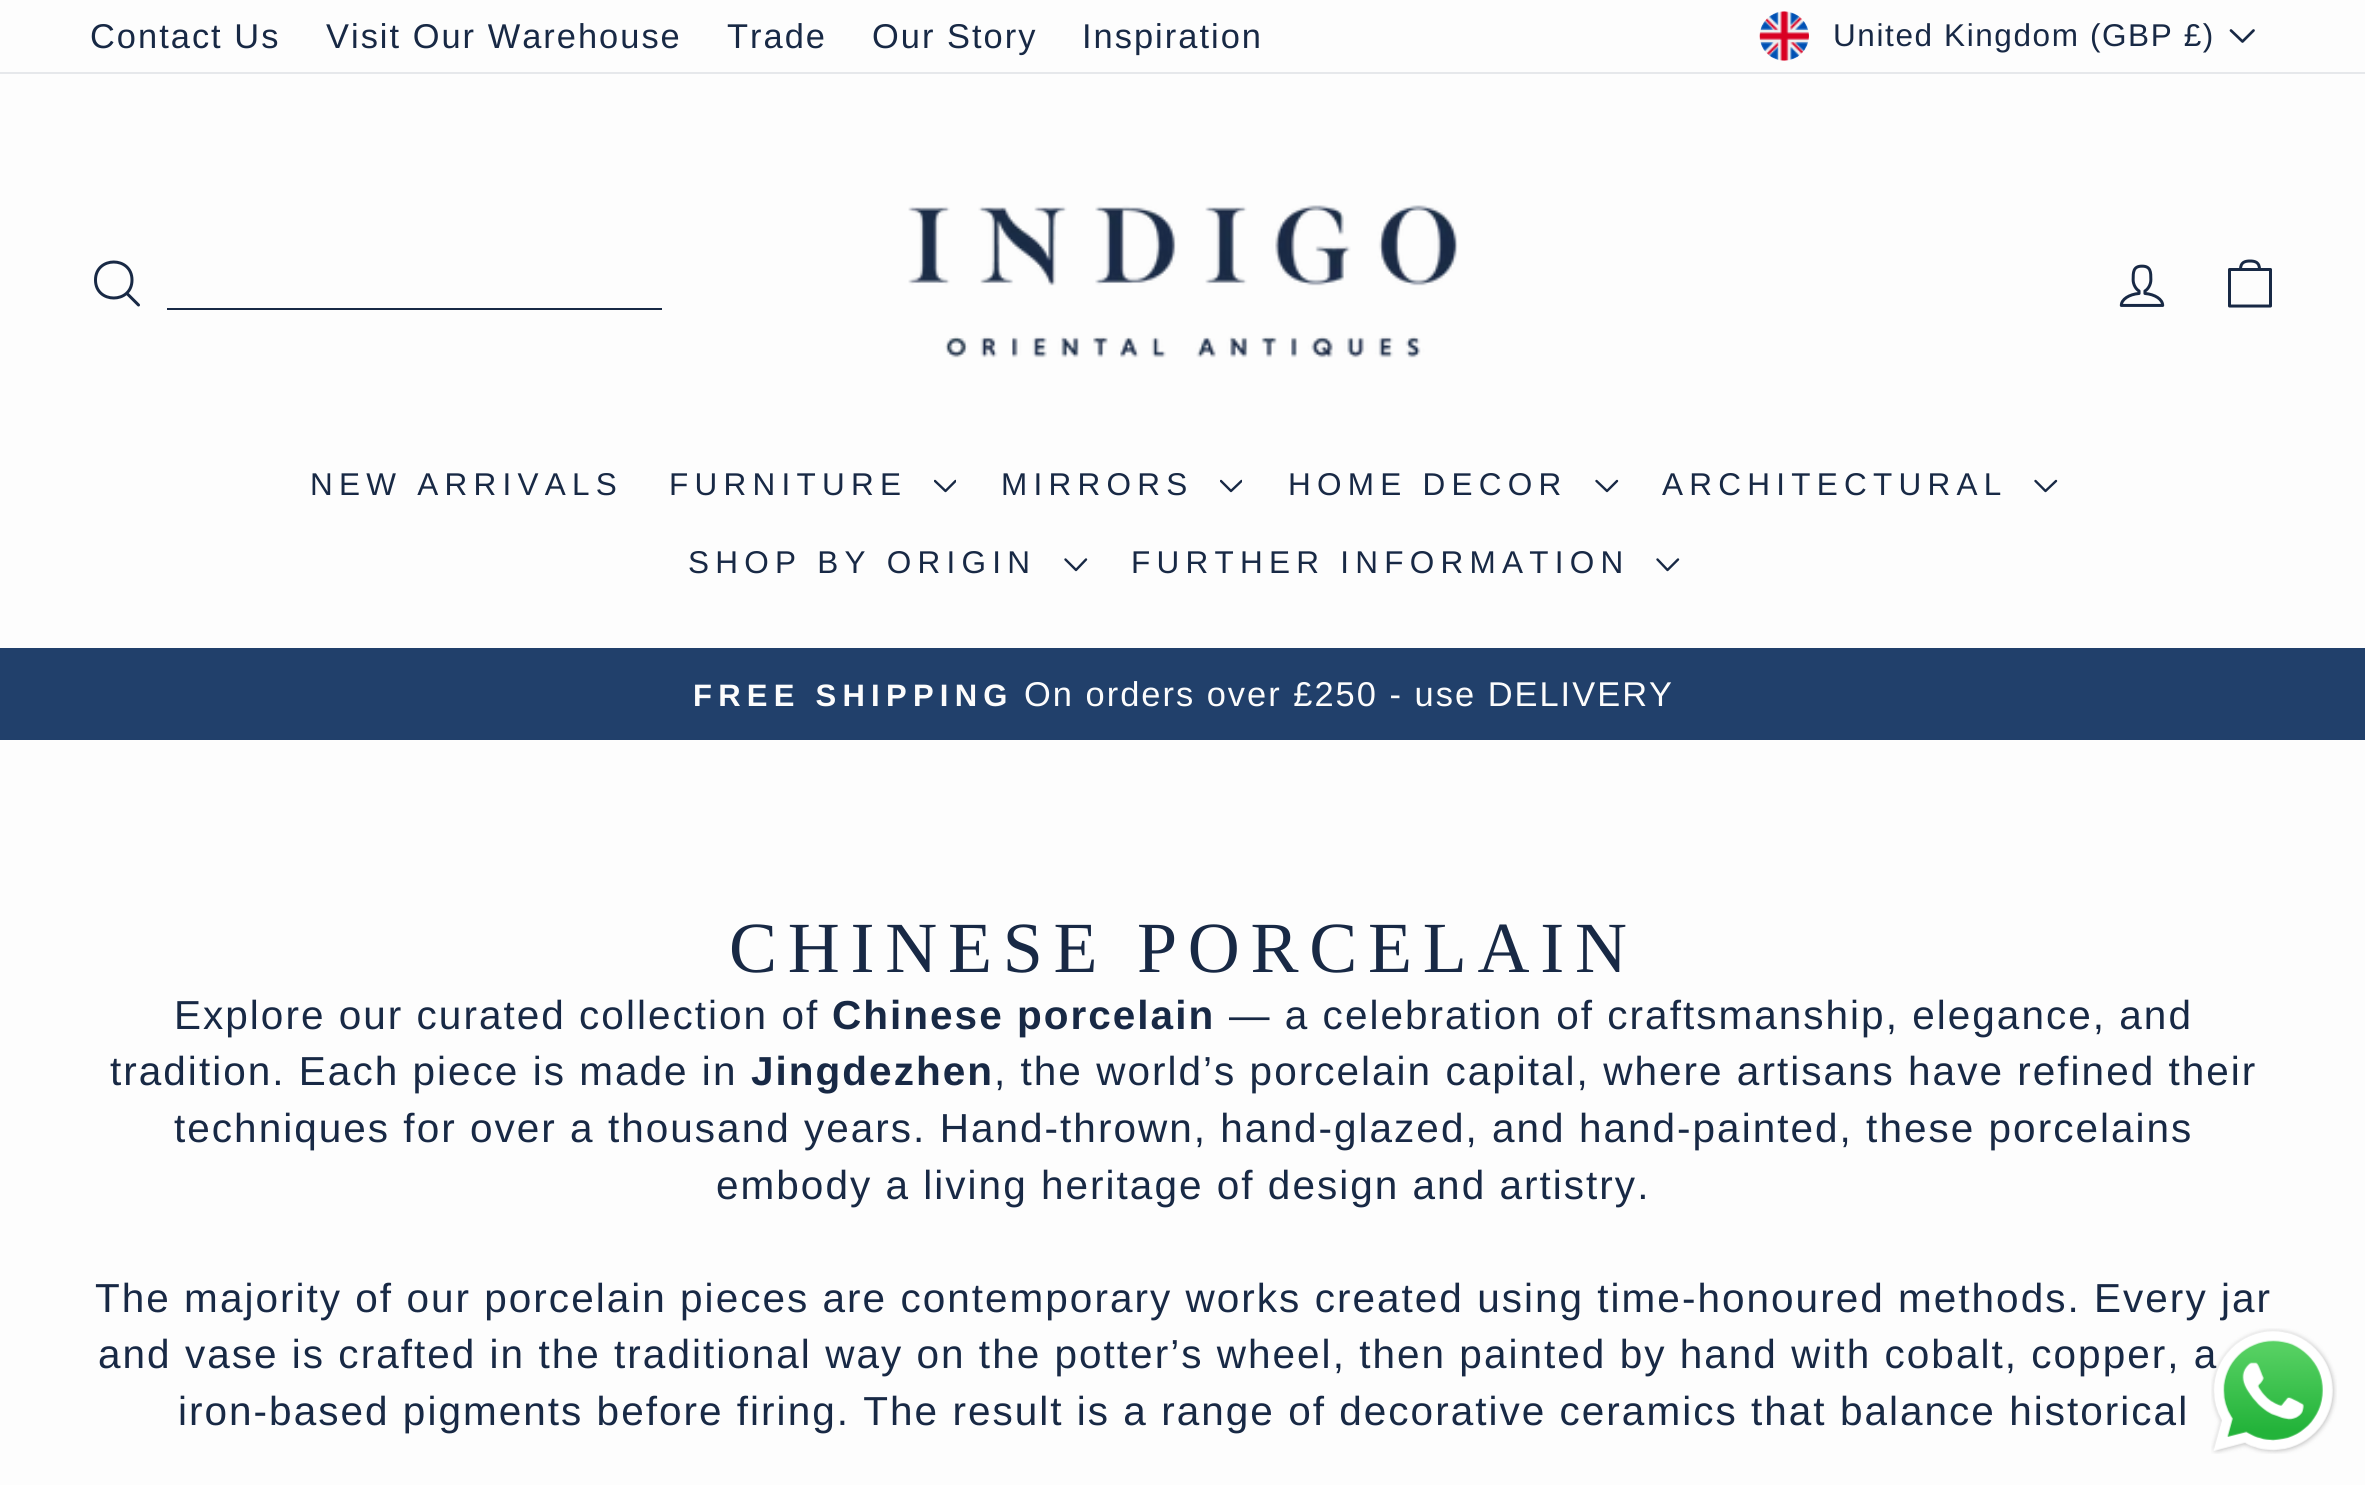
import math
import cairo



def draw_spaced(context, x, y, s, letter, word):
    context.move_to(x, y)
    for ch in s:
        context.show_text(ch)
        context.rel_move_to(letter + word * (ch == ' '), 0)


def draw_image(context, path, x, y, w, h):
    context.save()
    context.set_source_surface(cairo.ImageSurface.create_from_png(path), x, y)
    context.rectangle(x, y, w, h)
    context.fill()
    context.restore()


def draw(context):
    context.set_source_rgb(253 / 255, 253 / 255, 253 / 255)
    context.paint()
    draw_image(context, "images/1.png", 1759, 11, 50, 50)
    context.new_path()
    context.move_to(2231, 30.5)
    context.line_to(2242.5, 41.5)
    context.line_to(2253.5, 30.5)
    context.set_source_rgb(24 / 255, 41 / 255, 69 / 255)
    context.set_line_width(2.7)
    context.set_line_cap(cairo.LineCap.ROUND)
    context.set_line_join(cairo.LineJoin.ROUND)
    context.stroke()
    context.set_source_rgb(230 / 255, 232 / 255, 235 / 255)
    context.rectangle(0, 72, 2365, 2)
    context.fill()
    context.new_path()
    context.move_to(132, 280)
    context.curve_to(132, 304, 95.5, 304, 95.5, 280)
    context.curve_to(95.5, 256, 132, 256, 132, 280)
    context.close_path()
    context.move_to(138.5, 305)
    context.line_to(127, 293.5)
    context.set_source_rgb(24 / 255, 41 / 255, 69 / 255)
    context.set_line_width(3)
    context.stroke()
    context.rectangle(167, 308, 495, 2)
    context.fill()
    draw_image(context, "images/2.png", 908, 205, 550, 153)
    draw_image(context, "images/3.png", 2119, 264, 46, 43)
    context.new_path()
    context.move_to(2229.5, 269.5)
    context.line_to(2270.5, 269.5)
    context.line_to(2270.5, 306)
    context.line_to(2229.5, 306)
    context.close_path()
    context.move_to(2240.5, 269.5)
    context.curve_to(2240.5, 262.5, 2244.5, 261, 2250, 261)
    context.curve_to(2255.5, 261, 2259.5, 262.5, 2259.5, 269.5)
    context.stroke()
    context.save()
    context.rectangle(934, 475, 22, 22)
    context.clip()
    context.new_path()
    context.move_to(935, 481)
    context.line_to(945.5, 491)
    context.line_to(955.5, 481)
    context.set_line_width(2.4)
    context.stroke()
    context.restore()
    context.save()
    context.rectangle(1220, 475, 22, 22)
    context.clip()
    context.new_path()
    context.move_to(1221, 481)
    context.line_to(1231, 491)
    context.line_to(1241.5, 481)
    context.set_line_width(2.4)
    context.stroke()
    context.restore()
    context.new_path()
    context.move_to(1596.5, 481)
    context.line_to(1607, 491)
    context.line_to(1617, 481)
    context.set_line_width(2.4)
    context.stroke()
    context.new_path()
    context.move_to(2035.5, 481)
    context.line_to(2045.5, 491)
    context.line_to(2056, 481)
    context.stroke()
    context.new_path()
    context.move_to(1065.5, 559.5)
    context.line_to(1076, 570)
    context.line_to(1086, 559.5)
    context.stroke()
    context.new_path()
    context.move_to(1657.5, 559.5)
    context.line_to(1667.5, 570)
    context.line_to(1678, 559.5)
    context.stroke()
    context.set_source_rgb(33 / 255, 64 / 255, 107 / 255)
    context.rectangle(0, 648, 2365, 92)
    context.fill()
    context.select_font_face("Liberation Sans")
    context.set_font_size(34.4)
    context.set_source_rgb(24 / 255, 41 / 255, 69 / 255)
    draw_spaced(context, 90, 48, "Contact Us", 2.02, 0)
    draw_spaced(context, 326, 48, "Visit Our Warehouse", 2.02, 0)
    draw_spaced(context, 727, 48, "Trade", 2.02, 0)
    draw_spaced(context, 872, 48, "Our Story", 2.02, 0)
    draw_spaced(context, 1082, 48, "Inspiration", 2.02, 0)
    context.set_font_size(31.5)
    draw_spaced(context, 1833, 46, "United Kingdom (GBP £)", 1.6, 0)
    draw_spaced(context, 310, 495, "NEW ARRIVALS", 6.25, 0)
    draw_spaced(context, 669, 495, "FURNITURE", 6.25, 0)
    draw_spaced(context, 1001, 495, "MIRRORS", 6.25, 0)
    draw_spaced(context, 1288, 495, "HOME DECOR", 6.25, 0)
    draw_spaced(context, 1662, 495, "ARCHITECTURAL", 6.25, 0)
    draw_spaced(context, 688, 573, "SHOP BY ORIGIN", 6.25, 0)
    draw_spaced(context, 1131, 573, "FURTHER INFORMATION", 6.25, 0)
    context.select_font_face("Liberation Sans", cairo.FontSlant.NORMAL, cairo.FontWeight.BOLD)
    context.set_font_size(31)
    context.set_source_rgb(252 / 255, 252 / 255, 252 / 255)
    draw_spaced(context, 693, 706, "FREE SHIPPING", 6.25, 0)
    context.select_font_face("Liberation Sans")
    context.set_font_size(34.4)
    draw_spaced(context, 1024, 706, "On orders over £250 - use DELIVERY", 2.02, 0)
    context.select_font_face("Liberation Serif")
    context.set_font_size(72)
    context.set_source_rgb(24 / 255, 41 / 255, 69 / 255)
    draw_spaced(context, 729, 972, "CHINESE PORCELAIN", 10.75, 0)
    context.select_font_face("Liberation Sans")
    context.set_font_size(40.5)
    draw_spaced(context, 174, 1029, "Explore our curated collection of", 2.02, 0)
    context.select_font_face("Liberation Sans", cairo.FontSlant.NORMAL, cairo.FontWeight.BOLD)
    draw_spaced(context, 832, 1029, "Chinese porcelain", 2.02, 0)
    context.select_font_face("Liberation Sans")
    draw_spaced(context, 1229, 1029, "— a celebration of craftsmanship, elegance, and", 2.02, 0)
    draw_spaced(context, 110, 1085, "tradition. Each piece is made in", 2.02, 0)
    context.select_font_face("Liberation Sans", cairo.FontSlant.NORMAL, cairo.FontWeight.BOLD)
    draw_spaced(context, 751, 1085, "Jingdezhen", 2.02, 0)
    context.select_font_face("Liberation Sans")
    draw_spaced(context, 994, 1085, ", the world’s porcelain capital, where artisans have refined their", 2.02, 0)
    draw_spaced(context, 174, 1142, "techniques for over a thousand years. Hand-thrown, hand-glazed, and hand-painted, these porcelains", 2.02, 0)
    draw_spaced(context, 716, 1199, "embody a living heritage of design and artistry.", 2.02, 0)
    draw_spaced(context, 95, 1312, "The majority of our porcelain pieces are contemporary works created using time-honoured methods. Every jar", 2.02, 0)
    draw_spaced(context, 98, 1368, "and vase is crafted in the traditional way on the potter’s wheel, then painted by hand with cobalt, copper, a", 2.02, 0)
    draw_spaced(context, 178, 1425, "iron-based pigments before firing. The result is a range of decorative ceramics that balance historical", 2.02, 0)
    draw_image(context, "images/4.png", 2211, 1328, 126, 126)


surface = cairo.ImageSurface(cairo.Format.RGB24, 2365, 1485)
context = cairo.Context(surface)
options = cairo.FontOptions()
options.set_hint_metrics(cairo.HintMetrics.OFF)
options.set_hint_style(cairo.HintStyle.NONE)
context.set_font_options(options)
context.set_miter_limit(4)
draw(context)
surface.write_to_png("out.png")
